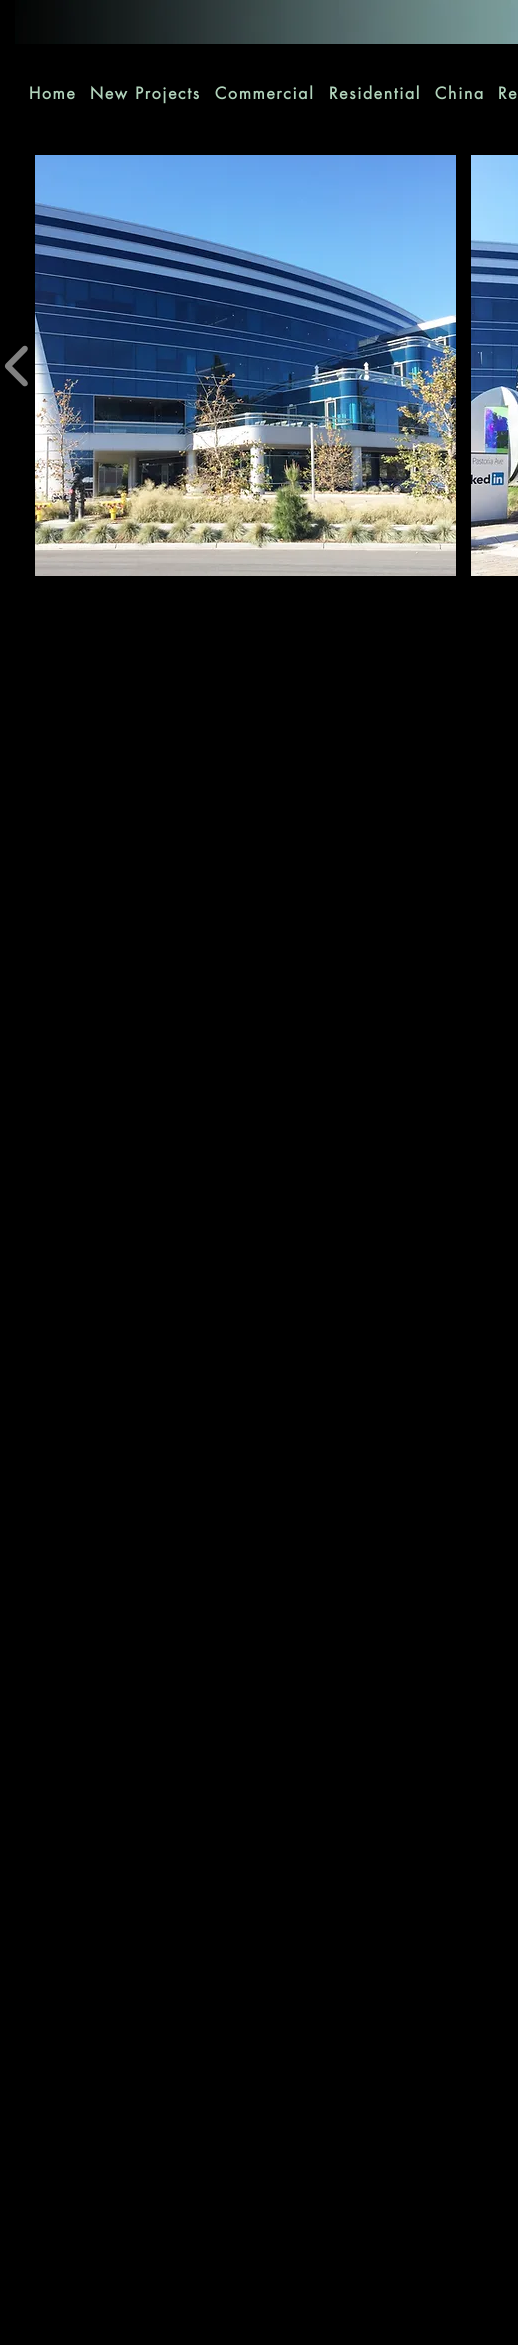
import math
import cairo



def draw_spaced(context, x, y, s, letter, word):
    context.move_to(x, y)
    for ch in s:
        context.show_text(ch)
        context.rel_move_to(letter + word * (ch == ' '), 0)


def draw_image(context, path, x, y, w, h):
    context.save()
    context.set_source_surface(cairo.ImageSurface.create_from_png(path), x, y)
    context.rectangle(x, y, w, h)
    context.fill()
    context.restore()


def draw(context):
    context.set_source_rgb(0, 0, 0)
    context.paint()
    draw_image(context, "images/1.png", 15, 0, 503, 44)
    draw_image(context, "images/2.png", 4, 345, 24, 42)
    draw_image(context, "images/3.png", 35, 155, 421, 421)
    draw_image(context, "images/4.png", 471, 155, 47, 421)
    context.select_font_face("futura", cairo.FontSlant.NORMAL, cairo.FontWeight.BOLD)
    context.set_font_size(16)
    context.set_source_rgb(177 / 255, 211 / 255, 187 / 255)
    draw_spaced(context, 29, 99, "Home", 1.6, 0)
    draw_spaced(context, 90, 99, "New Projects", 1.6, 0)
    draw_spaced(context, 215, 99, "Commercial", 1.6, 0)
    draw_spaced(context, 329, 99, "Residential", 1.6, 0)
    draw_spaced(context, 435, 99, "China", 1.6, 0)
    draw_spaced(context, 498, 99, "Re", 1.6, 0)


surface = cairo.ImageSurface(cairo.Format.RGB24, 518, 2345)
context = cairo.Context(surface)
options = cairo.FontOptions()
options.set_hint_metrics(cairo.HintMetrics.OFF)
options.set_hint_style(cairo.HintStyle.NONE)
context.set_font_options(options)
context.set_miter_limit(4)
draw(context)
surface.write_to_png("out.png")
